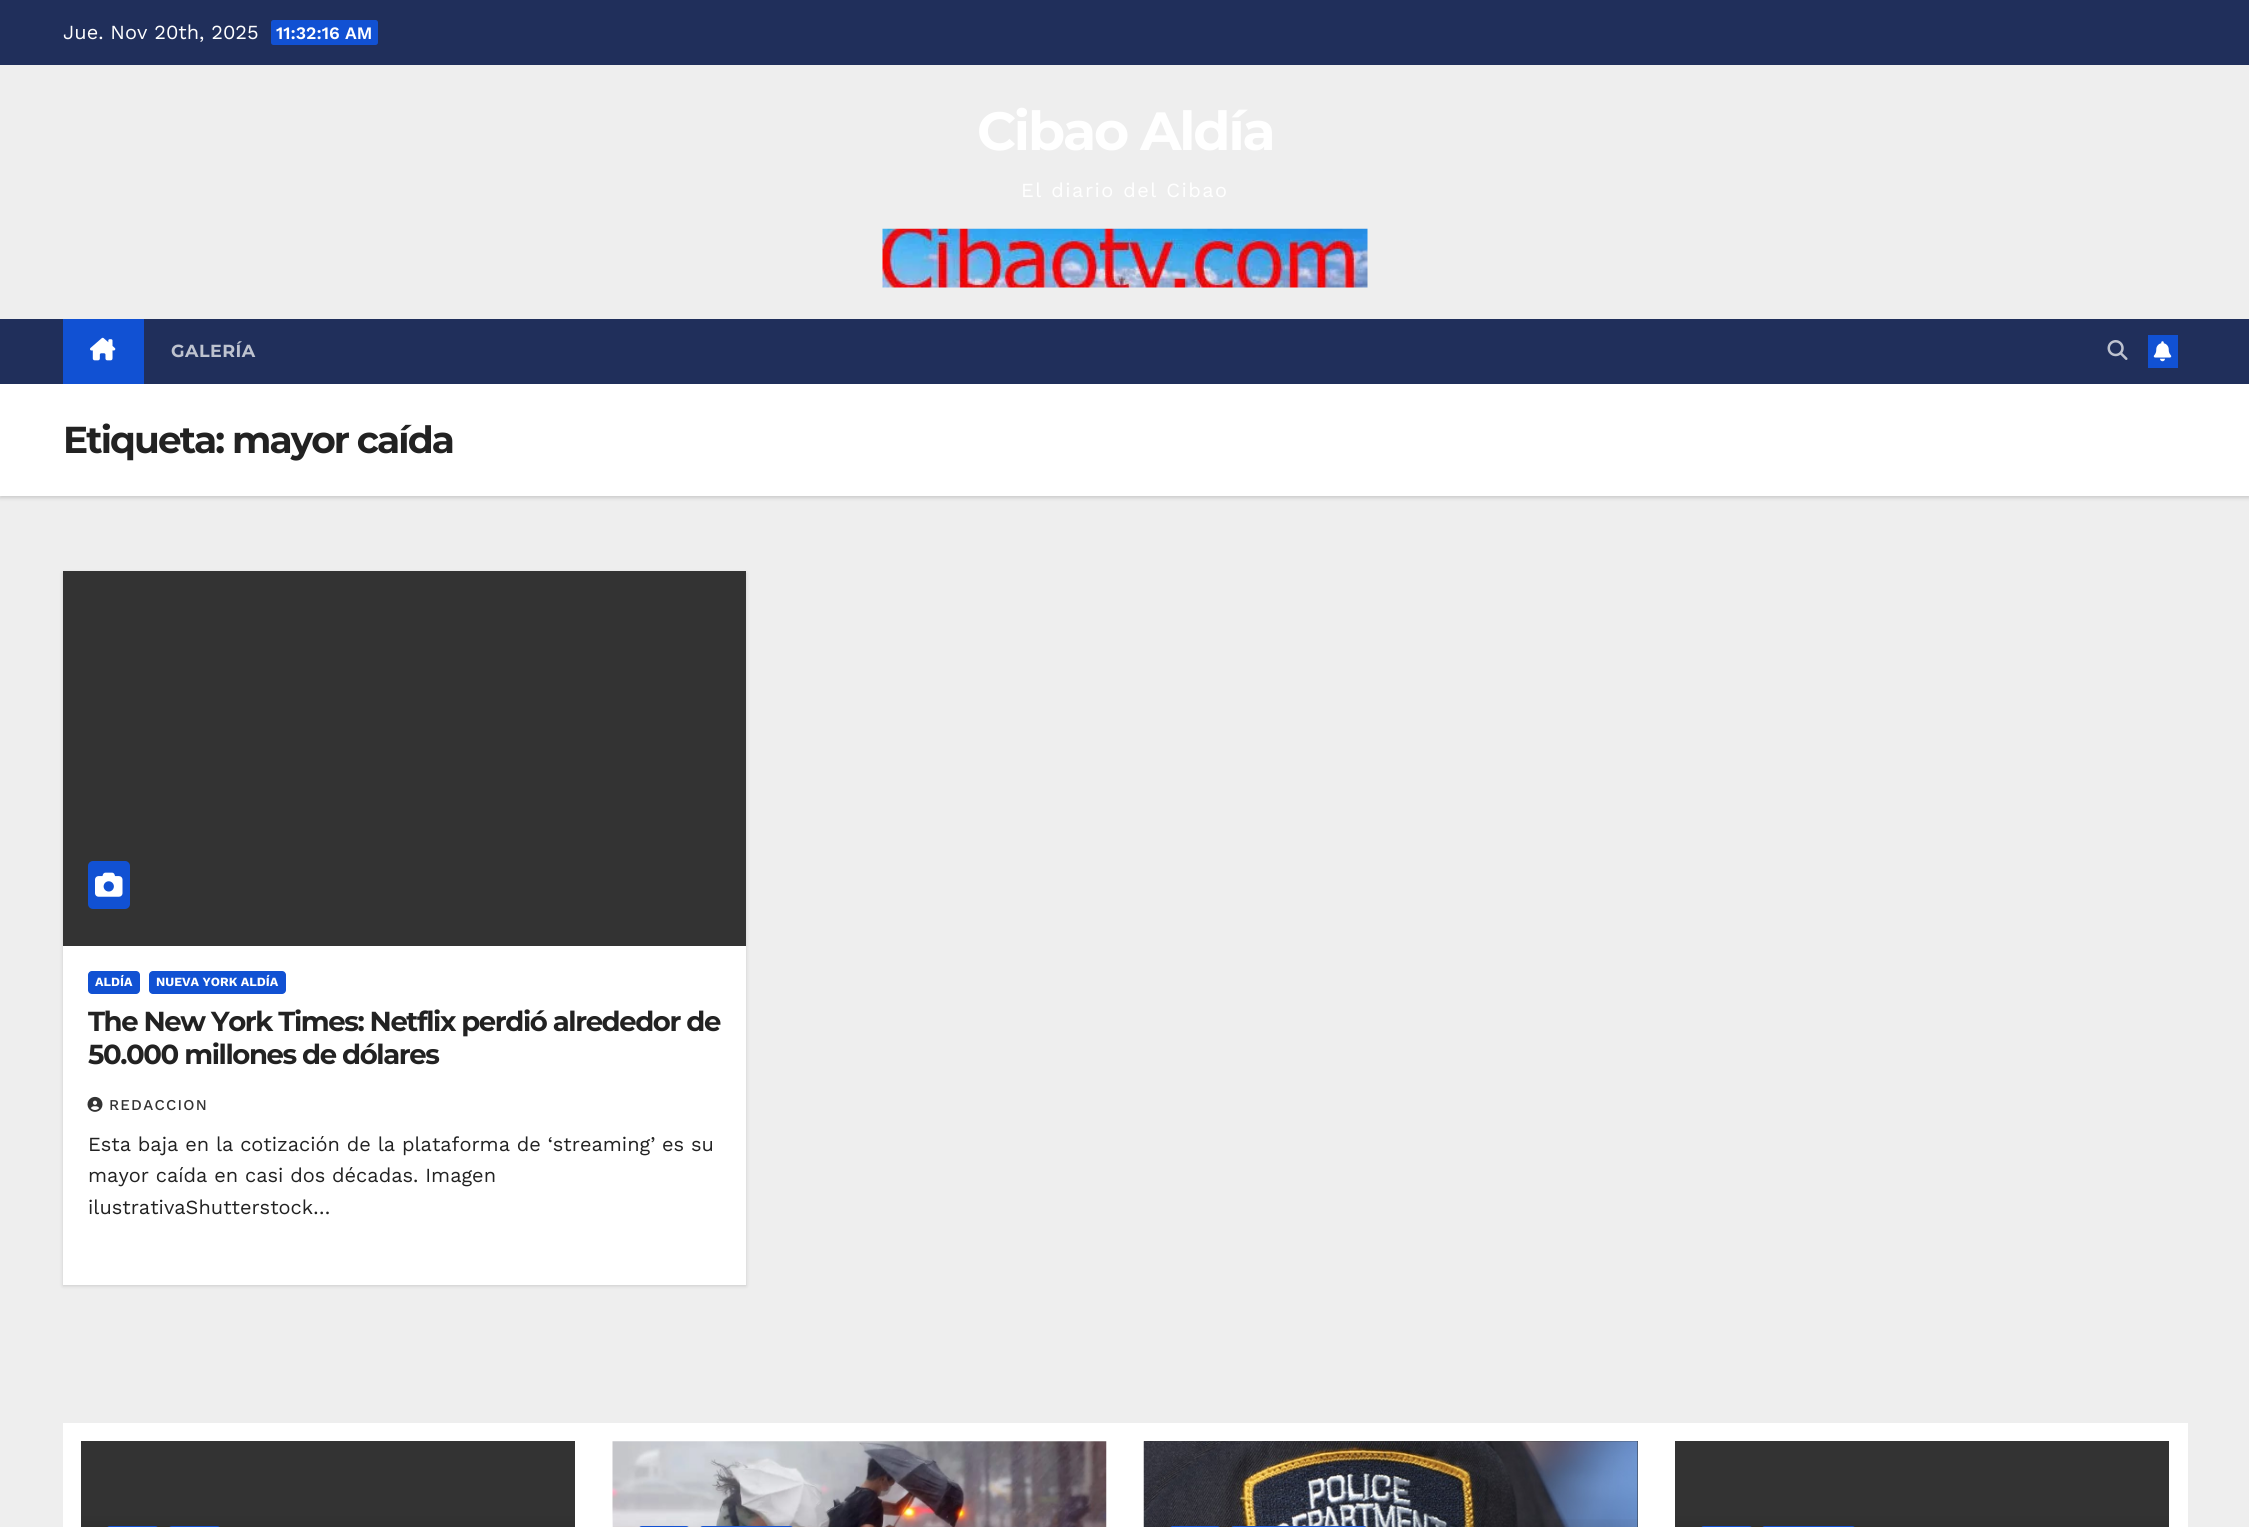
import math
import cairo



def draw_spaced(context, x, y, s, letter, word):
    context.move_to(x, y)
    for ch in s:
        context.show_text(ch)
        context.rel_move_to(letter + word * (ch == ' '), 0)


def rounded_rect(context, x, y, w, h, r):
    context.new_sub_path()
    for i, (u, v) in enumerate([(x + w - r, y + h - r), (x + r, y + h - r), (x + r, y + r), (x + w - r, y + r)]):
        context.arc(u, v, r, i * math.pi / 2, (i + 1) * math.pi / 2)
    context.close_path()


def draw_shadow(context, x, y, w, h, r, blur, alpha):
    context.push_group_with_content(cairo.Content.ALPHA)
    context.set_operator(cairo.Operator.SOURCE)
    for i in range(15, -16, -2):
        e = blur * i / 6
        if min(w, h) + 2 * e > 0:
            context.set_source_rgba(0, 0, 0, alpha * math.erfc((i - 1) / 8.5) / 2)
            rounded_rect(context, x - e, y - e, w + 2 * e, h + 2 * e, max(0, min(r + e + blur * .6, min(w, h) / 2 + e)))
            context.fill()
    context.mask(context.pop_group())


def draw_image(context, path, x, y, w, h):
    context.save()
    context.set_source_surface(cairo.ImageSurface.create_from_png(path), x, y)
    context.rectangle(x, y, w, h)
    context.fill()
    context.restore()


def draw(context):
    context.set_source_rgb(238 / 255, 238 / 255, 238 / 255)
    context.paint()
    context.set_source_rgb(32 / 255, 47 / 255, 91 / 255)
    context.rectangle(0, 0, 2249, 65)
    context.fill()
    context.set_source_rgb(17 / 255, 81 / 255, 211 / 255)
    rounded_rect(context, 271, 20, 107, 25, 2.5)
    context.fill()
    draw_image(context, "images/1.png", 882, 228, 486, 60)
    context.set_source_rgb(0, 0, 0)
    draw_shadow(context, 0, 385, 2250, 113, 0, 2, 0.15)
    context.set_source_rgb(32 / 255, 47 / 255, 91 / 255)
    context.rectangle(0, 319, 2249, 65)
    context.fill()
    context.set_source_rgb(17 / 255, 81 / 255, 211 / 255)
    context.rectangle(63, 319, 81, 65)
    context.fill()
    draw_image(context, "images/2.png", 90, 337, 26, 24)
    draw_image(context, "images/3.png", 2107, 340, 21, 20)
    context.rectangle(2148, 335, 30, 33)
    context.fill()
    draw_image(context, "images/4.png", 2153, 341, 19, 21)
    context.set_source_rgb(1, 1, 1)
    context.rectangle(0, 384, 2249, 112)
    context.fill()
    context.set_source_rgb(0, 0, 0)
    draw_shadow(context, 63, 573, 683, 713, 0, 2, 0.15)
    context.set_source_rgb(1, 1, 1)
    context.rectangle(63, 946, 683, 339)
    context.fill()
    context.set_source_rgb(51 / 255, 51 / 255, 51 / 255)
    context.rectangle(63, 571, 683, 375)
    context.fill()
    context.set_source_rgb(17 / 255, 81 / 255, 211 / 255)
    rounded_rect(context, 88, 861, 42, 48, 5)
    context.fill()
    draw_image(context, "images/5.png", 95, 872, 28, 25)
    rounded_rect(context, 88, 971, 52, 23, 4)
    context.fill()
    rounded_rect(context, 149, 971, 137, 23, 4)
    context.fill()
    draw_image(context, "images/6.png", 87, 1096, 16, 16)
    context.set_source_rgb(1, 1, 1)
    context.rectangle(63, 1423, 2125, 104)
    context.fill()
    context.set_source_rgb(51 / 255, 51 / 255, 51 / 255)
    context.rectangle(81, 1441, 494, 73)
    context.fill()
    gradient = cairo.LinearGradient(328, 1514, 328, 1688)
    gradient.add_color_stop_rgba(0, 51 / 255, 51 / 255, 51 / 255, 1)
    gradient.add_color_stop_rgba(0.5, 31 / 255, 31 / 255, 31 / 255, 1)
    gradient.add_color_stop_rgba(1, 15 / 255, 15 / 255, 15 / 255, 1)
    context.set_source(gradient)
    context.rectangle(81, 1514, 494, 13)
    context.fill()
    context.set_source_rgb(17 / 255, 81 / 255, 211 / 255)
    rounded_rect(context, 106, 1526, 53, 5, 4)
    context.fill()
    rounded_rect(context, 168, 1526, 53, 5, 4)
    context.fill()
    draw_image(context, "images/7.png", 612, 1441, 495, 86)
    rounded_rect(context, 638, 1526, 52, 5, 4)
    context.fill()
    rounded_rect(context, 699, 1526, 95, 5, 4)
    context.fill()
    context.set_source_rgb(51 / 255, 51 / 255, 51 / 255)
    context.rectangle(1144, 1441, 494, 86)
    context.fill()
    draw_image(context, "images/8.png", 1143, 1441, 495, 86)
    gradient = cairo.LinearGradient(1391, 1514, 1391, 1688)
    gradient.add_color_stop_rgba(0, 0, 0, 0, 0)
    gradient.add_color_stop_rgba(0.5, 0, 0, 0, 0.4)
    gradient.add_color_stop_rgba(1, 0, 0, 0, 0.7)
    context.set_source(gradient)
    context.rectangle(1144, 1519, 494, 8)
    context.fill()
    context.set_source_rgb(17 / 255, 81 / 255, 211 / 255)
    rounded_rect(context, 1169, 1526, 52, 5, 4)
    context.fill()
    rounded_rect(context, 1230, 1526, 138, 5, 4)
    context.fill()
    context.set_source_rgb(51 / 255, 51 / 255, 51 / 255)
    context.rectangle(1675, 1441, 494, 73)
    context.fill()
    gradient = cairo.LinearGradient(1922, 1514, 1922, 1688)
    gradient.add_color_stop_rgba(0, 51 / 255, 51 / 255, 51 / 255, 1)
    gradient.add_color_stop_rgba(0.5, 31 / 255, 31 / 255, 31 / 255, 1)
    gradient.add_color_stop_rgba(1, 15 / 255, 15 / 255, 15 / 255, 1)
    context.set_source(gradient)
    context.rectangle(1675, 1514, 494, 13)
    context.fill()
    context.set_source_rgb(17 / 255, 81 / 255, 211 / 255)
    rounded_rect(context, 1700, 1526, 53, 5, 4)
    context.fill()
    rounded_rect(context, 1761, 1526, 95, 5, 4)
    context.fill()
    context.select_font_face("Work Sans")
    context.set_font_size(20)
    context.set_source_rgb(1, 1, 1)
    context.move_to(63, 39)
    context.show_text("Jue. Nov 20th, 2025")
    context.select_font_face("Work Sans SemiBold")
    context.set_font_size(17.5)
    context.move_to(276, 39)
    context.show_text("11:32:16 AM")
    context.select_font_face("Montserrat", cairo.FontSlant.NORMAL, cairo.FontWeight.BOLD)
    context.set_font_size(53.75)
    draw_spaced(context, 977, 150, "Cibao Aldía", -2.1, 0)
    context.select_font_face("Work Sans")
    context.set_font_size(20)
    draw_spaced(context, 1021, 197, "El diario del Cibao", 1.5, 0)
    context.select_font_face("Montserrat", cairo.FontSlant.NORMAL, cairo.FontWeight.BOLD)
    context.set_font_size(17.5)
    context.set_source_rgb(190 / 255, 195 / 255, 207 / 255)
    draw_spaced(context, 171, 357, "GALERÍA", 0.5, 0)
    context.set_font_size(37.5)
    context.set_source_rgb(34 / 255, 34 / 255, 34 / 255)
    draw_spaced(context, 63, 453, "Etiqueta: mayor caída", -1.9, 0)
    context.select_font_face("Work Sans", cairo.FontSlant.NORMAL, cairo.FontWeight.BOLD)
    context.set_font_size(12.5)
    context.set_source_rgb(1, 1, 1)
    context.move_to(95, 986)
    context.show_text("ALDÍA")
    context.move_to(156, 986)
    context.show_text("NUEVA YORK ALDÍA")
    context.save()
    context.rectangle(88, 1006, 633, 67)
    context.clip()
    context.select_font_face("Montserrat", cairo.FontSlant.NORMAL, cairo.FontWeight.BOLD)
    context.set_font_size(27.5)
    context.set_source_rgb(34 / 255, 34 / 255, 34 / 255)
    draw_spaced(context, 88, 1031, "The New York Times: Netflix perdió alrededor de", -1.4, 0)
    context.restore()
    context.select_font_face("Montserrat", cairo.FontSlant.NORMAL, cairo.FontWeight.BOLD)
    context.set_font_size(27.5)
    context.set_source_rgb(34 / 255, 34 / 255, 34 / 255)
    draw_spaced(context, 88, 1064, "50.000 millones de dólares", -1.4, 0)
    context.select_font_face("Work Sans Medium")
    context.set_font_size(15)
    context.set_source_rgb(51 / 255, 51 / 255, 51 / 255)
    draw_spaced(context, 109, 1110, "REDACCION", 1.25, 0)
    context.select_font_face("Work Sans")
    context.set_font_size(20)
    context.set_source_rgb(34 / 255, 34 / 255, 34 / 255)
    context.move_to(88, 1151)
    context.show_text("Esta baja en la cotización de la plataforma de ‘streaming’ es su")
    context.move_to(88, 1182)
    context.show_text("mayor caída en casi dos décadas. Imagen")
    context.move_to(88, 1214)
    context.show_text("ilustrativaShutterstock…")


surface = cairo.ImageSurface(cairo.Format.RGB24, 2249, 1527)
context = cairo.Context(surface)
options = cairo.FontOptions()
options.set_hint_metrics(cairo.HintMetrics.OFF)
options.set_hint_style(cairo.HintStyle.NONE)
context.set_font_options(options)
context.set_miter_limit(4)
draw(context)
surface.write_to_png("out.png")
